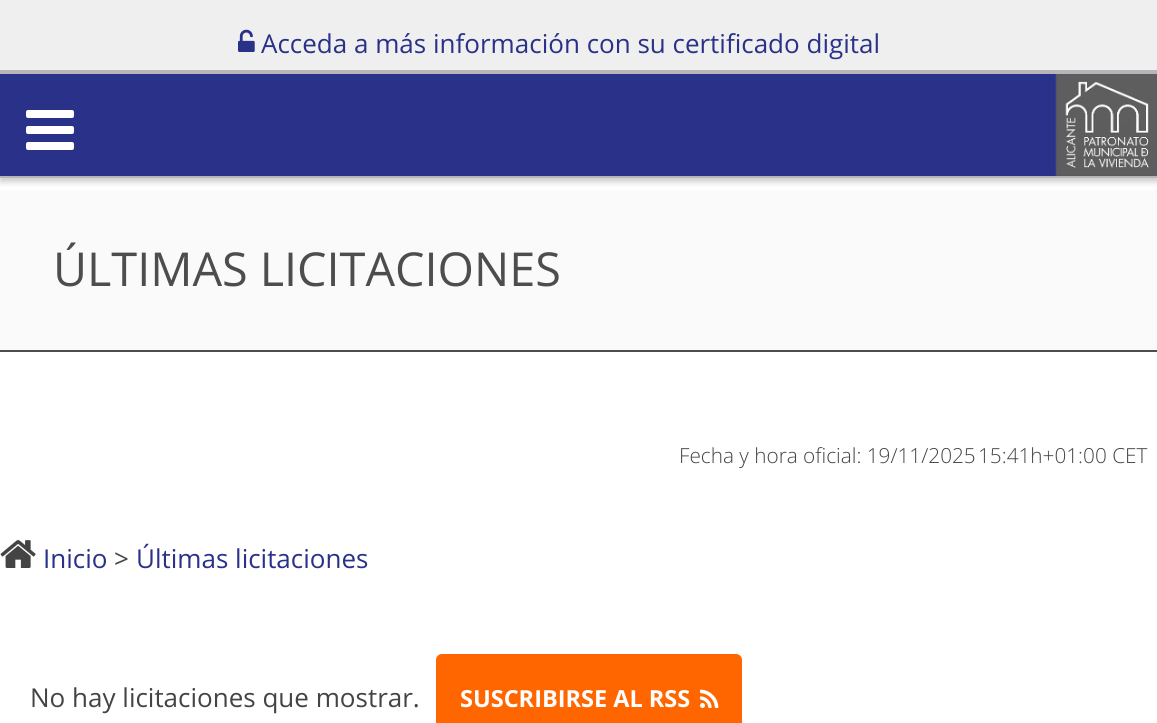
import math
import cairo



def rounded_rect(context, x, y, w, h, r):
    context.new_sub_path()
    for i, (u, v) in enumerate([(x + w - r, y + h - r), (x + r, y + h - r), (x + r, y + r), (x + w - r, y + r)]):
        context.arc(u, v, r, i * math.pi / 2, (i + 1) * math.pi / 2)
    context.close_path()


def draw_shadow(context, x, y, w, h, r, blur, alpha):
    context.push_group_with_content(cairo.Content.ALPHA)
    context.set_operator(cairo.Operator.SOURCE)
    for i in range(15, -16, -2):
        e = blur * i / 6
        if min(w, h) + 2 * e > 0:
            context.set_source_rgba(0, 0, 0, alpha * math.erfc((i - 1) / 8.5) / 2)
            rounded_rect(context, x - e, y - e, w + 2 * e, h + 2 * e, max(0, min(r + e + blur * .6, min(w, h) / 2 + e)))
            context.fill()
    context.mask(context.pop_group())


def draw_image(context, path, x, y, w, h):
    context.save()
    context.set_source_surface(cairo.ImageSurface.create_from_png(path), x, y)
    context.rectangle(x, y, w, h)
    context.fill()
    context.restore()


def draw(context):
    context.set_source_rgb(1, 1, 1)
    context.paint()
    context.set_source_rgb(250 / 255, 250 / 255, 250 / 255)
    context.rectangle(0, 190, 1157, 160)
    context.fill()
    context.set_source_rgb(0, 0, 0)
    draw_shadow(context, 0, 74, 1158, 108, 0, 3, 0.2)
    context.set_source_rgb(239 / 255, 239 / 255, 239 / 255)
    context.rectangle(0, 0, 1157, 70)
    context.fill()
    draw_image(context, "images/1.png", 238, 29, 17, 23)
    context.set_source_rgb(41 / 255, 49 / 255, 136 / 255)
    context.rectangle(0, 74, 1157, 102)
    context.fill()
    draw_image(context, "images/2.png", 26, 110, 48, 40)
    context.set_source_rgb(77 / 255, 77 / 255, 77 / 255)
    context.rectangle(0, 350, 1157, 2)
    context.fill()
    draw_image(context, "images/3.png", 0, 540, 36, 28)
    context.set_source_rgb(1, 102 / 255, 0)
    rounded_rect(context, 436, 654, 306, 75, 6)
    context.fill()
    draw_image(context, "images/4.png", 700, 689, 19, 19)
    draw_image(context, "images/5.png", 1055, 74, 102, 102)
    context.set_source_rgb(183 / 255, 181 / 255, 182 / 255)
    context.rectangle(0, 70, 1157, 4)
    context.fill()
    context.rectangle(0, 176, 1157, 2)
    context.fill()
    context.select_font_face("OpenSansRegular")
    context.set_font_size(26)
    context.set_source_rgb(41 / 255, 49 / 255, 136 / 255)
    context.move_to(261, 53)
    context.show_text("Acceda a más información con su certificado digital")
    context.set_font_size(46.75)
    context.set_source_rgb(77 / 255, 77 / 255, 77 / 255)
    context.move_to(53, 286)
    context.show_text("ÚLTIMAS LICITACIONES")
    context.set_font_size(26)
    context.set_source_rgb(41 / 255, 49 / 255, 136 / 255)
    context.move_to(43, 568)
    context.show_text("Inicio")
    context.set_source_rgb(68 / 255, 68 / 255, 68 / 255)
    context.move_to(114, 568)
    context.show_text(">")
    context.set_source_rgb(41 / 255, 49 / 255, 136 / 255)
    context.move_to(136, 568)
    context.show_text("Últimas licitaciones")
    context.set_source_rgb(68 / 255, 68 / 255, 68 / 255)
    context.move_to(30, 707)
    context.show_text("No hay licitaciones que mostrar.")
    context.select_font_face("Open Sans", cairo.FontSlant.NORMAL, cairo.FontWeight.BOLD)
    context.set_font_size(23.5)
    context.set_source_rgb(1, 1, 1)
    context.move_to(460, 707)
    context.show_text("SUSCRIBIRSE AL RSS")
    context.select_font_face("Open Sans Light")
    context.set_font_size(20.75)
    context.set_source_rgb(68 / 255, 68 / 255, 68 / 255)
    context.move_to(679, 463)
    context.show_text("Fecha y hora oficial: 19/11/2025")
    context.move_to(978, 463)
    context.show_text("15:41h+01:00 CET")


surface = cairo.ImageSurface(cairo.Format.RGB24, 1157, 723)
context = cairo.Context(surface)
options = cairo.FontOptions()
options.set_hint_metrics(cairo.HintMetrics.OFF)
options.set_hint_style(cairo.HintStyle.NONE)
context.set_font_options(options)
context.set_miter_limit(4)
draw(context)
surface.write_to_png("out.png")
